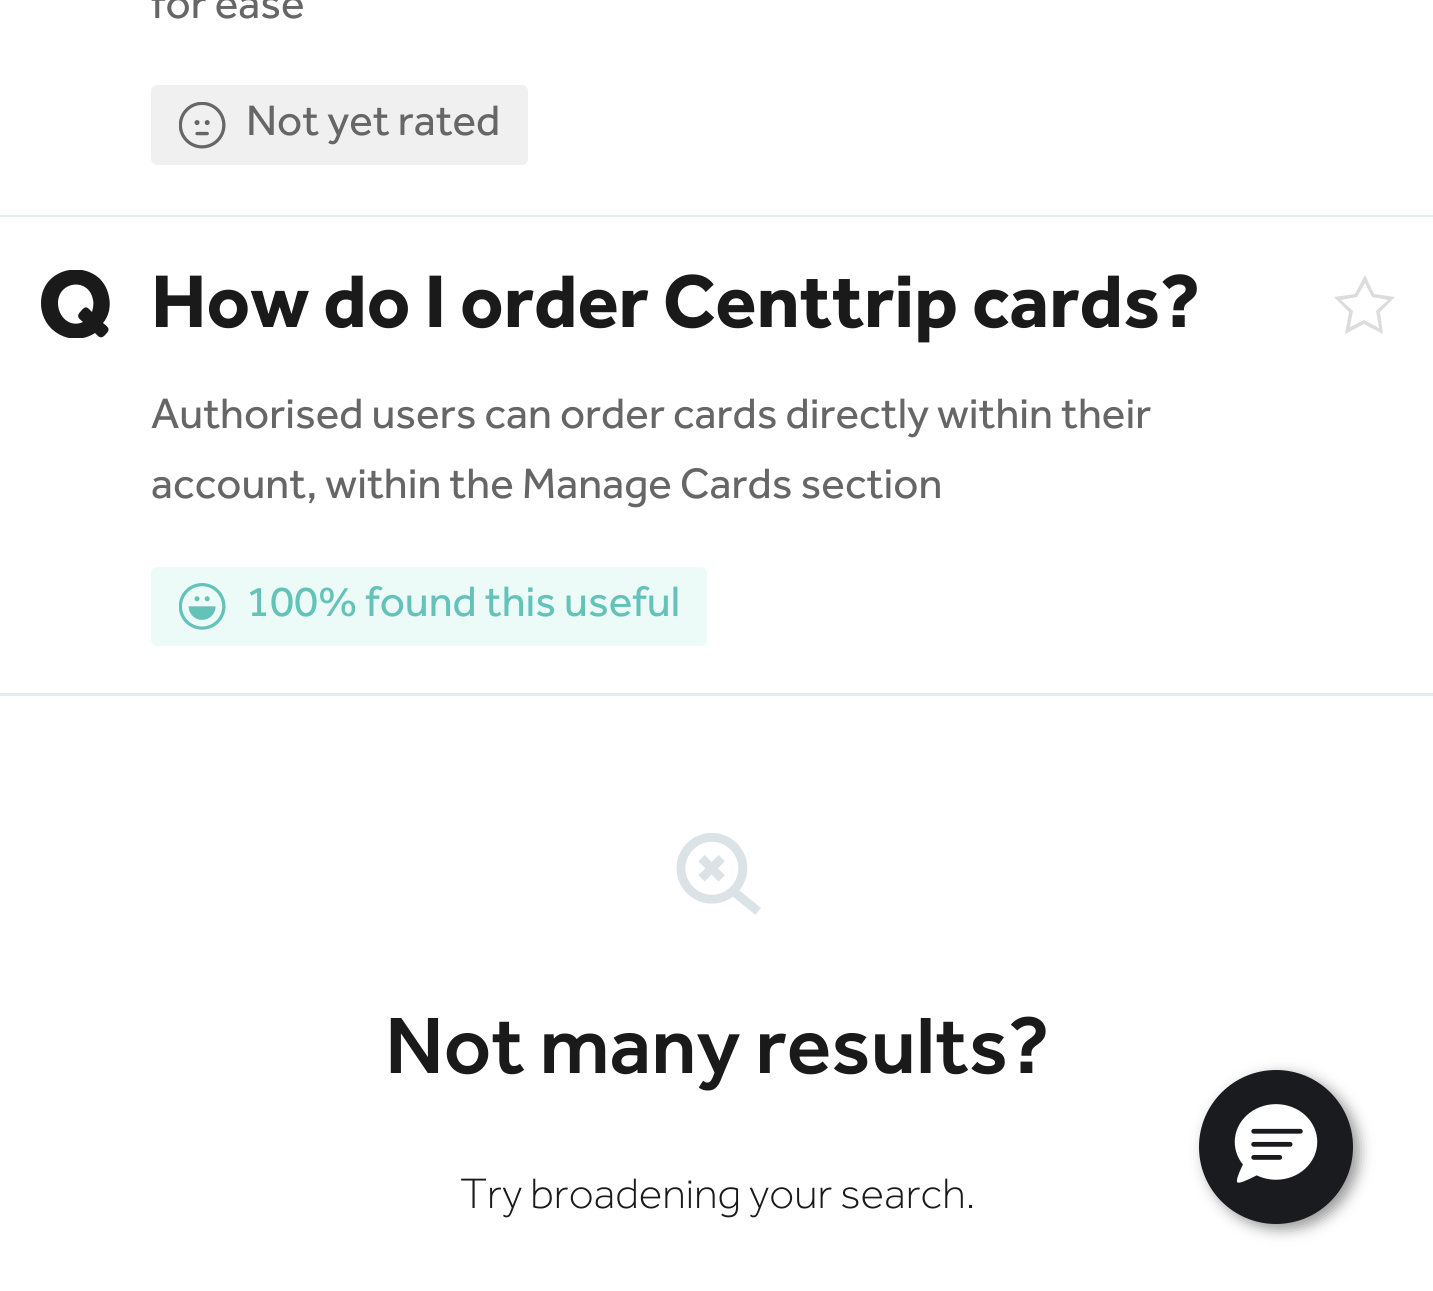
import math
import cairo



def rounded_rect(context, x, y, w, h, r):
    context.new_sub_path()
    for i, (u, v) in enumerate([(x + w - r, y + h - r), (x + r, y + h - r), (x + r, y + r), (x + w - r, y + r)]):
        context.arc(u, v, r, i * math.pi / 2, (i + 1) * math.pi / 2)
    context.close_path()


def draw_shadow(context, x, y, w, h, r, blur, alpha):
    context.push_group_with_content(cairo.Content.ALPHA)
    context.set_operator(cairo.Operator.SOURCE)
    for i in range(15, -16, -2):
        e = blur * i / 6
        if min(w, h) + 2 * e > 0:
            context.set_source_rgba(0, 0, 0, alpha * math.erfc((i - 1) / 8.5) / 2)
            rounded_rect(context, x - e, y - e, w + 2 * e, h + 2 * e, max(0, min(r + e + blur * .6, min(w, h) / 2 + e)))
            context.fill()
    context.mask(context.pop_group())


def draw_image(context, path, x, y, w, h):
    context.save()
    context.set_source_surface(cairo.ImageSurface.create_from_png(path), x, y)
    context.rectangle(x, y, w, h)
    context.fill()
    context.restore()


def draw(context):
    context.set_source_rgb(1, 1, 1)
    context.paint()
    context.set_source_rgb(229 / 255, 235 / 255, 238 / 255)
    context.rectangle(0, 215, 1433, 2)
    context.fill()
    context.set_source_rgb(240 / 255, 240 / 255, 240 / 255)
    rounded_rect(context, 151, 85, 377, 80, 6)
    context.fill()
    draw_image(context, "images/1.png", 179, 102, 47, 47)
    context.save()
    context.rectangle(41, 270, 69, 68)
    context.clip()
    context.set_source_rgb(26 / 255, 26 / 255, 26 / 255)
    context.new_path()
    context.move_to(41, 303)
    context.curve_to(41, 262, 102, 257, 109, 297)
    context.curve_to(111, 306, 109, 316, 103, 323)
    context.curve_to(108, 327, 111, 329, 106, 334)
    context.curve_to(101, 340, 99, 337, 95, 333)
    context.curve_to(72, 348, 41, 332, 41, 303)
    context.close_path()
    context.move_to(58, 303)
    context.curve_to(58, 317, 70, 328, 83, 322)
    context.curve_to(78, 318, 76, 316, 81, 311)
    context.curve_to(86, 305, 87, 307, 92, 312)
    context.curve_to(93, 308, 94, 304, 93, 300)
    context.curve_to(89, 277, 58, 281, 58, 303)
    context.close_path()
    context.fill()
    context.restore()
    context.set_source_rgb(236 / 255, 250 / 255, 248 / 255)
    rounded_rect(context, 151, 567, 556, 79, 6)
    context.fill()
    draw_image(context, "images/2.png", 179, 583, 47, 47)
    context.set_source_rgb(220 / 255, 220 / 255, 220 / 255)
    context.new_path()
    context.move_to(1383, 334)
    context.line_to(1364, 324)
    context.line_to(1345, 334)
    context.line_to(1349, 312)
    context.line_to(1334, 297)
    context.line_to(1355, 294)
    context.line_to(1365, 275)
    context.line_to(1374, 294)
    context.line_to(1395, 297)
    context.line_to(1380, 312)
    context.close_path()
    context.move_to(1364, 320)
    context.line_to(1379, 328)
    context.line_to(1376, 311)
    context.line_to(1388, 300)
    context.line_to(1372, 297)
    context.line_to(1365, 283)
    context.line_to(1357, 297)
    context.line_to(1341, 300)
    context.line_to(1353, 311)
    context.line_to(1350, 327)
    context.close_path()
    context.fill()
    context.set_source_rgb(229 / 255, 235 / 255, 238 / 255)
    context.rectangle(0, 693, 1433, 3)
    context.fill()
    draw_image(context, "images/3.png", 676, 833, 85, 82)
    context.set_source_rgb(45 / 255, 45 / 255, 45 / 255)
    draw_shadow(context, 1205, 1075, 154, 154, 77, 7, 0.5)
    context.set_source_rgb(26 / 255, 27 / 255, 30 / 255)
    context.arc(1276, 1147, 77, 0, 2 * math.pi)
    context.fill()
    draw_image(context, "images/4.png", 1234, 1104, 84, 79)
    context.select_font_face("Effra")
    context.set_font_size(44)
    context.set_source_rgb(102 / 255, 102 / 255, 102 / 255)
    context.move_to(151, 18)
    context.show_text("for ease")
    context.move_to(246, 135)
    context.show_text("Not yet rated")
    context.select_font_face("Effra", cairo.FontSlant.NORMAL, cairo.FontWeight.BOLD)
    context.set_font_size(77)
    context.set_source_rgb(26 / 255, 26 / 255, 26 / 255)
    context.move_to(151, 327)
    context.show_text("How do I order Centtrip cards?")
    context.select_font_face("Effra")
    context.set_font_size(44)
    context.set_source_rgb(102 / 255, 102 / 255, 102 / 255)
    context.move_to(151, 428)
    context.show_text("Authorised users can order cards directly within their")
    context.move_to(151, 498)
    context.show_text("account, within the Manage Cards section")
    context.set_source_rgb(99 / 255, 195 / 255, 185 / 255)
    context.move_to(246, 616)
    context.show_text("100% found this useful")
    context.select_font_face("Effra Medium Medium")
    context.set_font_size(82.5)
    context.set_source_rgb(26 / 255, 26 / 255, 26 / 255)
    context.move_to(385, 1073)
    context.show_text("Not many results?")
    context.select_font_face("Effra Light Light")
    context.set_font_size(44)
    context.move_to(460, 1208)
    context.show_text("Try broadening your search.")


surface = cairo.ImageSurface(cairo.Format.RGB24, 1433, 1291)
context = cairo.Context(surface)
options = cairo.FontOptions()
options.set_hint_metrics(cairo.HintMetrics.OFF)
options.set_hint_style(cairo.HintStyle.NONE)
context.set_font_options(options)
context.set_miter_limit(4)
draw(context)
surface.write_to_png("out.png")
